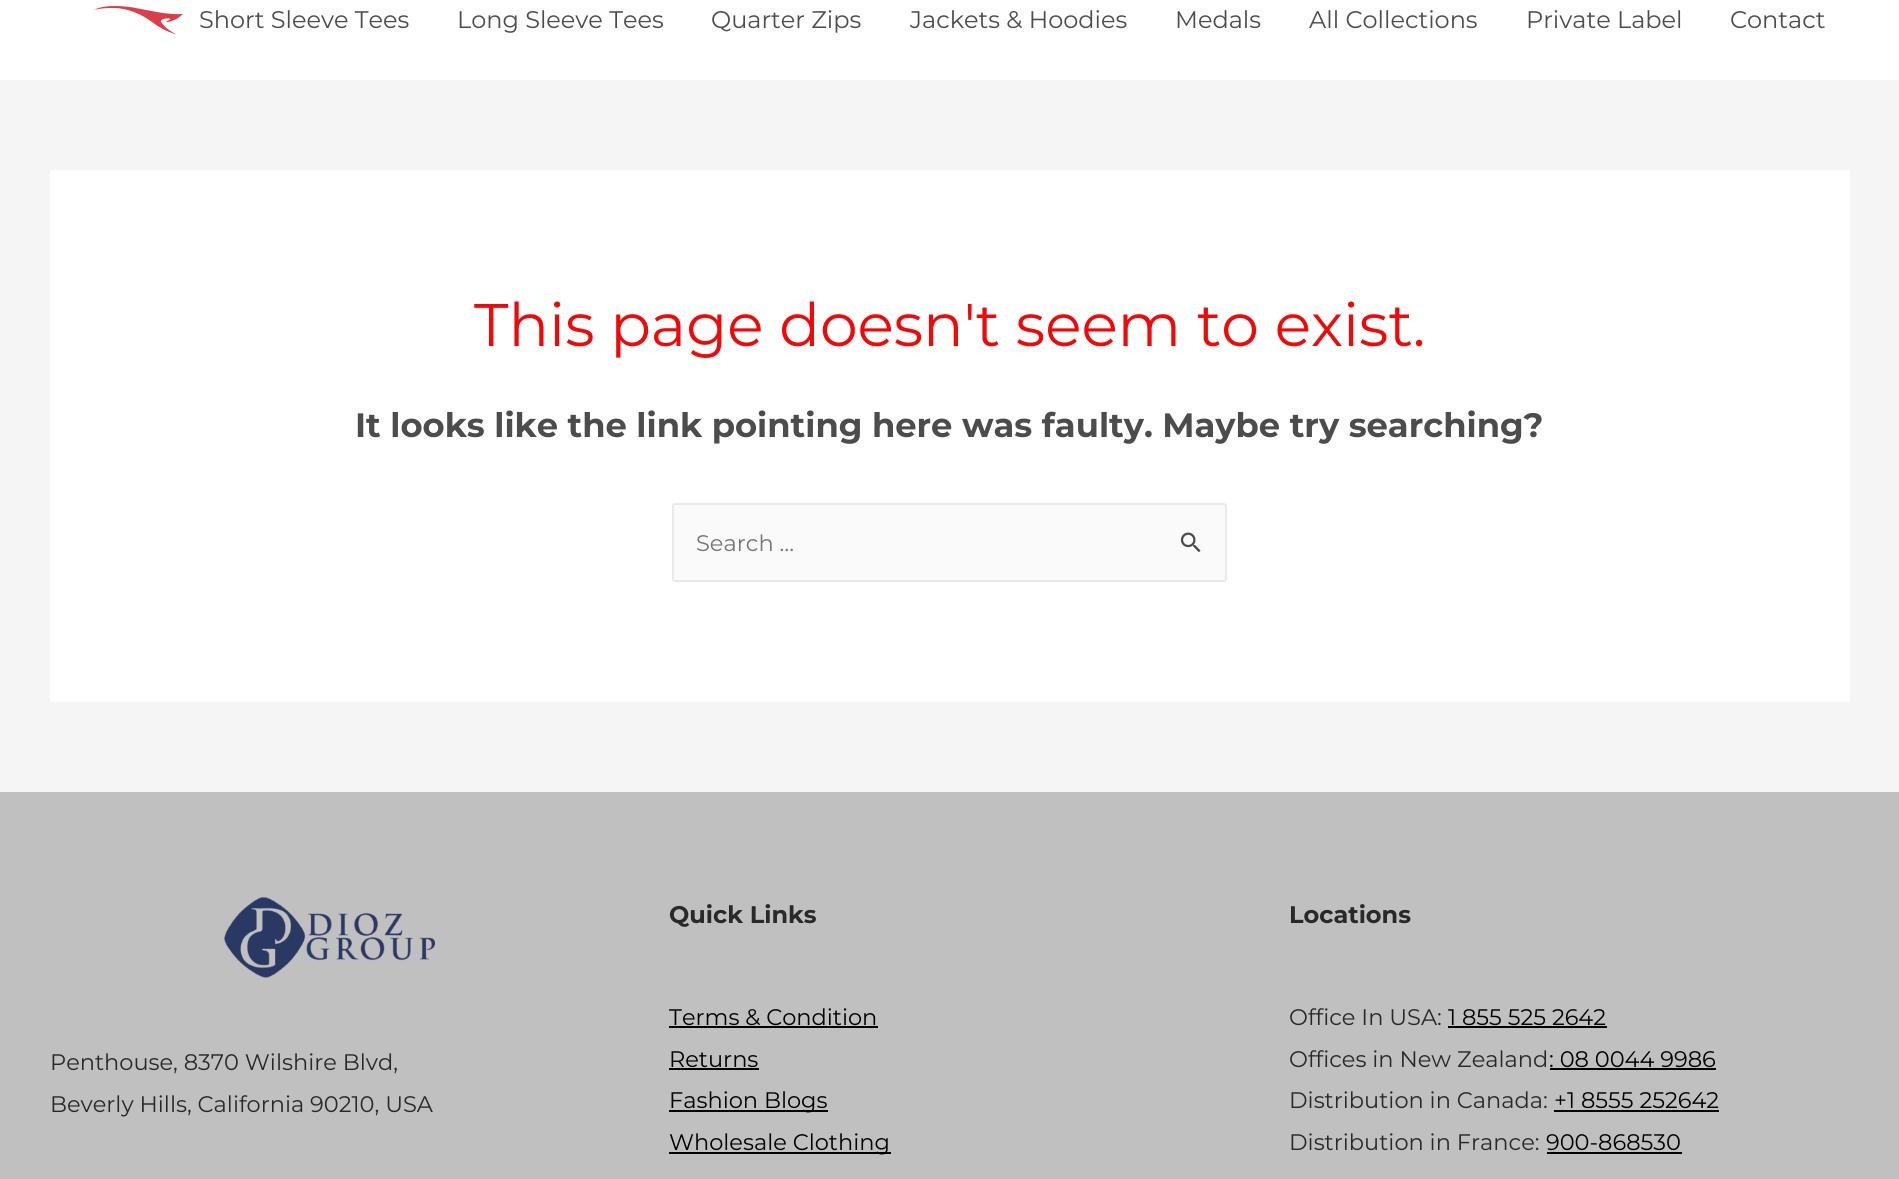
import math
import cairo



def rounded_rect(context, x, y, w, h, r):
    context.new_sub_path()
    for i, (u, v) in enumerate([(x + w - r, y + h - r), (x + r, y + h - r), (x + r, y + r), (x + w - r, y + r)]):
        context.arc(u, v, r, i * math.pi / 2, (i + 1) * math.pi / 2)
    context.close_path()


def draw_image(context, path, x, y, w, h):
    context.save()
    context.set_source_surface(cairo.ImageSurface.create_from_png(path), x, y)
    context.rectangle(x, y, w, h)
    context.fill()
    context.restore()


def draw(context):
    context.set_source_rgb(245 / 255, 245 / 255, 245 / 255)
    context.paint()
    context.set_source_rgb(1, 1, 1)
    context.rectangle(0, 0, 1899, 80)
    context.fill()
    draw_image(context, "images/1.png", 94, 6, 89, 29)
    context.rectangle(50, 170, 1800, 532)
    context.fill()
    context.set_source_rgb(250 / 255, 250 / 255, 250 / 255)
    rounded_rect(context, 673, 504, 553, 77, 2)
    context.fill_preserve()
    context.set_source_rgb(234 / 255, 234 / 255, 234 / 255)
    context.stroke()
    draw_image(context, "images/2.png", 1180, 532, 21, 21)
    context.set_source_rgb(192 / 255, 192 / 255, 192 / 255)
    context.rectangle(0, 792, 1899, 387)
    context.fill()
    draw_image(context, "images/3.png", 224, 897, 211, 81)
    context.set_source_rgb(0, 0, 0)
    context.rectangle(669, 1026, 209, 2)
    context.fill()
    context.rectangle(669, 1068, 90, 2)
    context.fill()
    context.rectangle(669, 1110, 159, 2)
    context.fill()
    context.rectangle(669, 1152, 222, 2)
    context.fill()
    context.rectangle(1448, 1026, 159, 2)
    context.fill()
    context.rectangle(1550, 1068, 166, 2)
    context.fill()
    context.rectangle(1554, 1110, 165, 2)
    context.fill()
    context.rectangle(1547, 1152, 135, 2)
    context.fill()
    context.select_font_face("Montserrat")
    context.set_font_size(24)
    context.set_source_rgb(76 / 255, 76 / 255, 76 / 255)
    context.move_to(199, 28)
    context.show_text("Short Sleeve Tees")
    context.move_to(457, 28)
    context.show_text("Long Sleeve Tees")
    context.move_to(711, 28)
    context.show_text("Quarter Zips")
    context.move_to(910, 28)
    context.show_text("Jackets & Hoodies")
    context.move_to(1175, 28)
    context.show_text("Medals")
    context.move_to(1309, 28)
    context.show_text("All Collections")
    context.move_to(1526, 28)
    context.show_text("Private Label")
    context.move_to(1730, 28)
    context.show_text("Contact")
    context.set_font_size(60)
    context.set_source_rgb(239 / 255, 9 / 255, 9 / 255)
    context.move_to(474, 346)
    context.show_text("This page doesn't seem to exist.")
    context.select_font_face("Montserrat", cairo.FontSlant.NORMAL, cairo.FontWeight.BOLD)
    context.set_font_size(33.75)
    context.set_source_rgb(76 / 255, 76 / 255, 76 / 255)
    context.move_to(355, 437)
    context.show_text("It looks like the link pointing here was faulty. Maybe try searching?")
    context.select_font_face("Montserrat")
    context.set_font_size(22.5)
    context.set_source_rgb(117 / 255, 117 / 255, 117 / 255)
    context.move_to(696, 551)
    context.show_text("Search …")
    context.set_source_rgb(41 / 255, 41 / 255, 41 / 255)
    context.move_to(50, 1070)
    context.show_text("Penthouse, 8370 Wilshire Blvd,")
    context.move_to(50, 1112)
    context.show_text("Beverly Hills, California 90210, USA")
    context.select_font_face("Montserrat", cairo.FontSlant.NORMAL, cairo.FontWeight.BOLD)
    context.set_font_size(24)
    context.move_to(669, 923)
    context.show_text("Quick Links")
    context.select_font_face("Montserrat")
    context.set_font_size(22.5)
    context.set_source_rgb(0, 0, 0)
    context.move_to(669, 1025)
    context.show_text("Terms & Condition")
    context.move_to(669, 1067)
    context.show_text("Returns")
    context.move_to(669, 1108)
    context.show_text("Fashion Blogs")
    context.move_to(669, 1150)
    context.show_text("Wholesale Clothing")
    context.select_font_face("Montserrat", cairo.FontSlant.NORMAL, cairo.FontWeight.BOLD)
    context.set_font_size(24)
    context.set_source_rgb(41 / 255, 41 / 255, 41 / 255)
    context.move_to(1289, 923)
    context.show_text("Locations")
    context.select_font_face("Montserrat")
    context.set_font_size(22.5)
    context.move_to(1289, 1025)
    context.show_text("Office In USA:")
    context.set_source_rgb(0, 0, 0)
    context.move_to(1448, 1025)
    context.show_text("1 855 525 2642")
    context.set_source_rgb(41 / 255, 41 / 255, 41 / 255)
    context.move_to(1289, 1067)
    context.show_text("Offices in New Zealand")
    context.set_source_rgb(0, 0, 0)
    context.move_to(1549, 1067)
    context.show_text(": 08 0044 9986")
    context.set_source_rgb(41 / 255, 41 / 255, 41 / 255)
    context.move_to(1289, 1108)
    context.show_text("Distribution in Canada:")
    context.set_source_rgb(0, 0, 0)
    context.move_to(1554, 1108)
    context.show_text("+1 8555 252642")
    context.set_source_rgb(41 / 255, 41 / 255, 41 / 255)
    context.move_to(1289, 1150)
    context.show_text("Distribution in France:")
    context.set_source_rgb(0, 0, 0)
    context.move_to(1546, 1150)
    context.show_text("900-868530")


surface = cairo.ImageSurface(cairo.Format.RGB24, 1899, 1179)
context = cairo.Context(surface)
options = cairo.FontOptions()
options.set_hint_metrics(cairo.HintMetrics.OFF)
options.set_hint_style(cairo.HintStyle.NONE)
context.set_font_options(options)
context.set_miter_limit(4)
draw(context)
surface.write_to_png("out.png")
